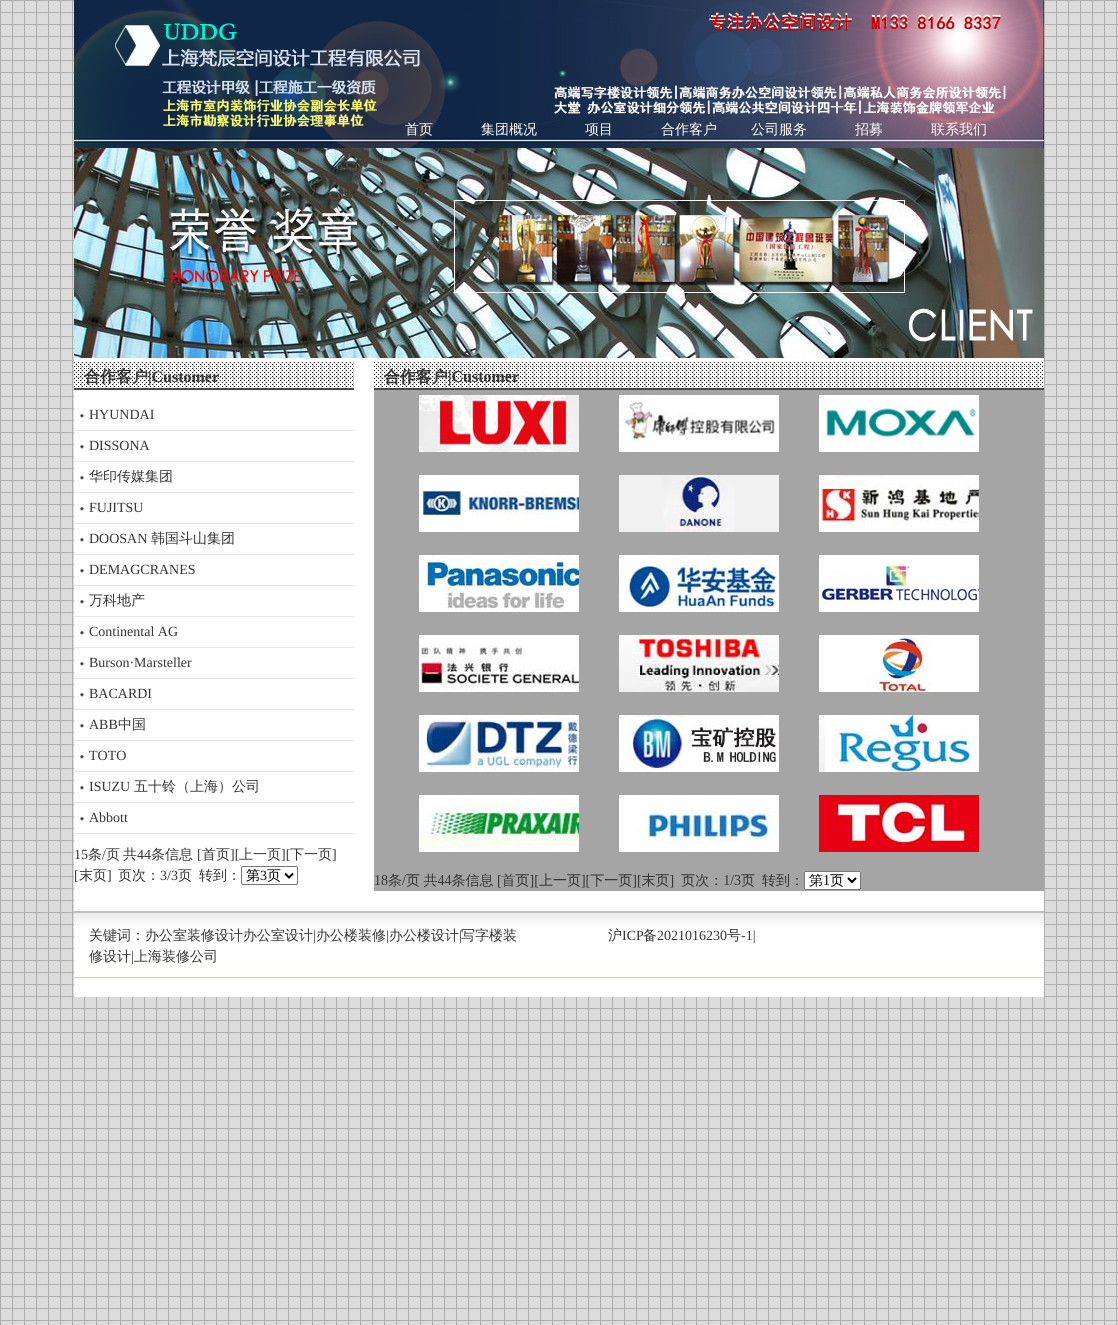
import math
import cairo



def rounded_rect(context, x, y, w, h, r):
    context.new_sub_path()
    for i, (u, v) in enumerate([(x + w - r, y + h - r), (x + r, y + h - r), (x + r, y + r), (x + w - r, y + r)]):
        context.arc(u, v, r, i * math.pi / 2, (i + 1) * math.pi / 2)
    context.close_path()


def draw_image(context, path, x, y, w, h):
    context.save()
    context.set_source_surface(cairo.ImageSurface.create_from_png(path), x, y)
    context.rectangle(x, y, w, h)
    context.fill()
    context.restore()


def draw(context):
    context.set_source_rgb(1, 1, 1)
    context.paint()
    draw_image(context, "images/1.png", 0, 0, 1118, 1325)
    draw_image(context, "images/2.png", 74, 0, 970, 148)
    context.set_source_rgb(1, 1, 1)
    context.rectangle(74, 358, 970, 552)
    context.fill()
    draw_image(context, "images/3.png", 74, 148, 970, 210)
    draw_image(context, "images/4.png", 74, 362, 280, 28)
    draw_image(context, "images/5.png", 80, 413, 5, 5)
    context.set_source_rgb(233 / 255, 233 / 255, 233 / 255)
    context.rectangle(74, 430, 280, 1)
    context.fill()
    draw_image(context, "images/5.png", 80, 444, 5, 5)
    context.rectangle(74, 461, 280, 1)
    context.fill()
    draw_image(context, "images/5.png", 80, 475, 5, 5)
    context.rectangle(74, 492, 280, 1)
    context.fill()
    draw_image(context, "images/5.png", 80, 506, 5, 5)
    context.rectangle(74, 523, 280, 1)
    context.fill()
    draw_image(context, "images/5.png", 80, 537, 5, 5)
    context.rectangle(74, 554, 280, 1)
    context.fill()
    draw_image(context, "images/5.png", 80, 568, 5, 5)
    context.rectangle(74, 585, 280, 1)
    context.fill()
    draw_image(context, "images/5.png", 80, 599, 5, 5)
    context.rectangle(74, 616, 280, 1)
    context.fill()
    draw_image(context, "images/5.png", 80, 630, 5, 5)
    context.rectangle(74, 647, 280, 1)
    context.fill()
    draw_image(context, "images/5.png", 80, 661, 5, 5)
    context.rectangle(74, 678, 280, 1)
    context.fill()
    draw_image(context, "images/5.png", 80, 692, 5, 5)
    context.rectangle(74, 709, 280, 1)
    context.fill()
    draw_image(context, "images/5.png", 80, 723, 5, 5)
    context.rectangle(74, 740, 280, 1)
    context.fill()
    draw_image(context, "images/5.png", 80, 754, 5, 5)
    context.rectangle(74, 771, 280, 1)
    context.fill()
    draw_image(context, "images/5.png", 80, 785, 5, 5)
    context.rectangle(74, 802, 280, 1)
    context.fill()
    draw_image(context, "images/5.png", 80, 816, 5, 5)
    context.rectangle(74, 833, 280, 1)
    context.fill()
    rounded_rect(context, 241.5, 866.5, 56, 18, 1.5)
    context.set_source_rgb(118 / 255, 118 / 255, 118 / 255)
    context.set_line_width(1)
    context.stroke()
    context.new_path()
    context.move_to(285, 873.5)
    context.line_to(289, 877.5)
    context.line_to(293, 873.5)
    context.set_source_rgb(0, 0, 0)
    context.set_line_width(2)
    context.stroke()
    draw_image(context, "images/6.png", 374, 362, 670, 529)
    draw_image(context, "images/7.png", 74, 910, 970, 87)
    context.select_font_face("WenQuanYi Zen Hei Medium")
    context.set_font_size(14)
    context.set_source_rgb(1, 1, 1)
    context.move_to(405, 134)
    context.show_text("首页")
    context.move_to(481, 134)
    context.show_text("集团概况")
    context.move_to(585, 134)
    context.show_text("项目")
    context.move_to(661, 134)
    context.show_text("合作客户")
    context.move_to(751, 134)
    context.show_text("公司服务")
    context.move_to(855, 134)
    context.show_text("招募")
    context.move_to(931, 134)
    context.show_text("联系我们")
    context.select_font_face("WenQuanYi Zen Hei", cairo.FontSlant.NORMAL, cairo.FontWeight.BOLD)
    context.set_font_size(16)
    context.set_source_rgb(53 / 255, 53 / 255, 53 / 255)
    context.move_to(84, 382)
    context.show_text("合作客户")
    context.select_font_face("Liberation Serif", cairo.FontSlant.NORMAL, cairo.FontWeight.BOLD)
    context.move_to(148, 382)
    context.show_text("|Customer")
    context.select_font_face("Liberation Serif")
    context.set_font_size(14)
    context.move_to(89, 419)
    context.show_text("HYUNDAI")
    context.move_to(89, 450)
    context.show_text("DISSONA")
    context.select_font_face("WenQuanYi Zen Hei Medium")
    context.move_to(89, 481)
    context.show_text("华印传媒集团")
    context.select_font_face("Liberation Serif")
    context.move_to(89, 512)
    context.show_text("FUJITSU")
    context.move_to(89, 543)
    context.show_text("DOOSAN")
    context.select_font_face("WenQuanYi Zen Hei Medium")
    context.move_to(151, 543)
    context.show_text("韩国斗山集团")
    context.select_font_face("Liberation Serif")
    context.move_to(89, 574)
    context.show_text("DEMAGCRANES")
    context.select_font_face("WenQuanYi Zen Hei Medium")
    context.move_to(89, 605)
    context.show_text("万科地产")
    context.select_font_face("Liberation Serif")
    context.move_to(89, 636)
    context.show_text("Continental AG")
    context.move_to(89, 667)
    context.show_text("Burson·Marsteller")
    context.move_to(89, 698)
    context.show_text("BACARDI")
    context.move_to(89, 729)
    context.show_text("ABB")
    context.select_font_face("WenQuanYi Zen Hei Medium")
    context.move_to(118, 729)
    context.show_text("中国")
    context.select_font_face("Liberation Serif")
    context.move_to(89, 760)
    context.show_text("TOTO")
    context.move_to(89, 791)
    context.show_text("ISUZU")
    context.select_font_face("WenQuanYi Zen Hei Medium")
    context.move_to(134, 791)
    context.show_text("五十铃（上海）公司")
    context.select_font_face("Liberation Serif")
    context.move_to(89, 822)
    context.show_text("Abbott")
    context.move_to(74, 859)
    context.show_text("15")
    context.select_font_face("WenQuanYi Zen Hei Medium")
    context.move_to(88, 859)
    context.show_text("条")
    context.select_font_face("Liberation Serif")
    context.move_to(102, 859)
    context.show_text("/")
    context.select_font_face("WenQuanYi Zen Hei Medium")
    context.move_to(106, 859)
    context.show_text("页")
    context.move_to(123, 859)
    context.show_text("共")
    context.select_font_face("Liberation Serif")
    context.move_to(137, 859)
    context.show_text("44")
    context.select_font_face("WenQuanYi Zen Hei Medium")
    context.move_to(151, 859)
    context.show_text("条信息")
    context.select_font_face("Liberation Serif")
    context.move_to(197, 859)
    context.show_text("[")
    context.select_font_face("WenQuanYi Zen Hei Medium")
    context.move_to(202, 859)
    context.show_text("首页")
    context.select_font_face("Liberation Serif")
    context.move_to(230, 859)
    context.show_text("][")
    context.select_font_face("WenQuanYi Zen Hei Medium")
    context.move_to(239, 859)
    context.show_text("上一页")
    context.select_font_face("Liberation Serif")
    context.move_to(281, 859)
    context.show_text("][")
    context.select_font_face("WenQuanYi Zen Hei Medium")
    context.move_to(290, 859)
    context.show_text("下一页")
    context.select_font_face("Liberation Serif")
    context.move_to(332, 859)
    context.show_text("]")
    context.move_to(74, 880)
    context.show_text("[")
    context.select_font_face("WenQuanYi Zen Hei Medium")
    context.move_to(79, 880)
    context.show_text("末页")
    context.select_font_face("Liberation Serif")
    context.move_to(107, 880)
    context.show_text("]")
    context.select_font_face("WenQuanYi Zen Hei Medium")
    context.move_to(118, 880)
    context.show_text("页次：")
    context.select_font_face("Liberation Serif")
    context.move_to(160, 880)
    context.show_text("3/3")
    context.select_font_face("WenQuanYi Zen Hei Medium")
    context.move_to(178, 880)
    context.show_text("页")
    context.move_to(199, 880)
    context.show_text("转到：")
    context.set_source_rgb(0, 0, 0)
    context.move_to(246, 880)
    context.show_text("第")
    context.select_font_face("Liberation Serif")
    context.move_to(260, 880)
    context.show_text("3")
    context.select_font_face("WenQuanYi Zen Hei Medium")
    context.move_to(267, 880)
    context.show_text("页")
    context.set_source_rgb(53 / 255, 53 / 255, 53 / 255)
    context.move_to(89, 940)
    context.show_text("关键词：办公室装修设计办公室设计")
    context.select_font_face("Liberation Serif")
    context.move_to(313, 940)
    context.show_text("|")
    context.select_font_face("WenQuanYi Zen Hei Medium")
    context.move_to(316, 940)
    context.show_text("办公楼装修")
    context.select_font_face("Liberation Serif")
    context.move_to(386, 940)
    context.show_text("|")
    context.select_font_face("WenQuanYi Zen Hei Medium")
    context.move_to(389, 940)
    context.show_text("办公楼设计")
    context.select_font_face("Liberation Serif")
    context.move_to(459, 940)
    context.show_text("|")
    context.select_font_face("WenQuanYi Zen Hei Medium")
    context.move_to(461, 940)
    context.show_text("写字楼装")
    context.move_to(89, 961)
    context.show_text("修设计")
    context.select_font_face("Liberation Serif")
    context.move_to(131, 961)
    context.show_text("|")
    context.select_font_face("WenQuanYi Zen Hei Medium")
    context.move_to(134, 961)
    context.show_text("上海装修公司")
    context.move_to(608, 940)
    context.show_text("沪")
    context.select_font_face("Liberation Serif")
    context.move_to(622, 940)
    context.show_text("ICP")
    context.select_font_face("WenQuanYi Zen Hei Medium")
    context.move_to(643, 940)
    context.show_text("备")
    context.select_font_face("Liberation Serif")
    context.move_to(657, 940)
    context.show_text("2021016230")
    context.select_font_face("WenQuanYi Zen Hei Medium")
    context.move_to(727, 940)
    context.show_text("号")
    context.select_font_face("Liberation Serif")
    context.move_to(741, 940)
    context.show_text("-1|")


surface = cairo.ImageSurface(cairo.Format.RGB24, 1118, 1325)
context = cairo.Context(surface)
options = cairo.FontOptions()
options.set_hint_metrics(cairo.HintMetrics.OFF)
options.set_hint_style(cairo.HintStyle.NONE)
context.set_font_options(options)
context.set_miter_limit(4)
draw(context)
surface.write_to_png("out.png")
